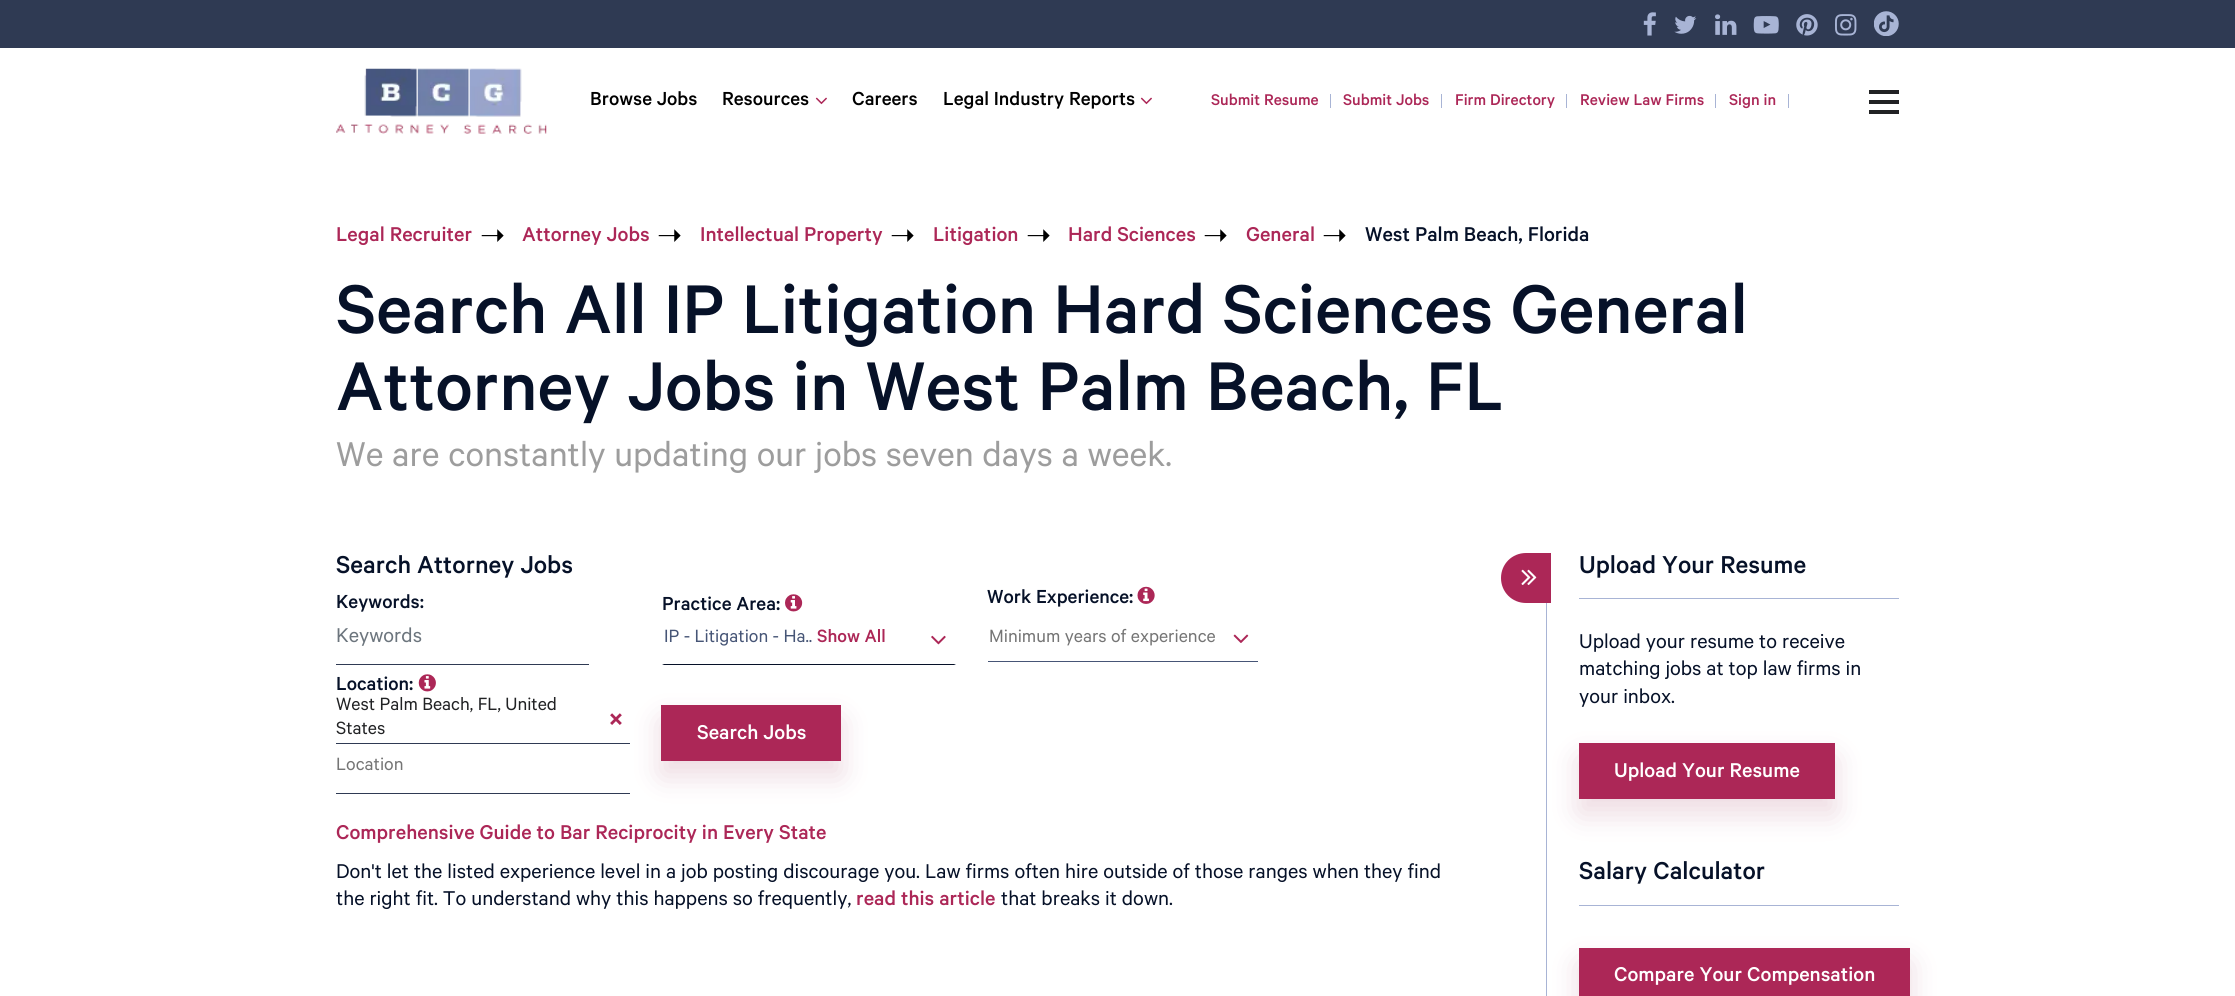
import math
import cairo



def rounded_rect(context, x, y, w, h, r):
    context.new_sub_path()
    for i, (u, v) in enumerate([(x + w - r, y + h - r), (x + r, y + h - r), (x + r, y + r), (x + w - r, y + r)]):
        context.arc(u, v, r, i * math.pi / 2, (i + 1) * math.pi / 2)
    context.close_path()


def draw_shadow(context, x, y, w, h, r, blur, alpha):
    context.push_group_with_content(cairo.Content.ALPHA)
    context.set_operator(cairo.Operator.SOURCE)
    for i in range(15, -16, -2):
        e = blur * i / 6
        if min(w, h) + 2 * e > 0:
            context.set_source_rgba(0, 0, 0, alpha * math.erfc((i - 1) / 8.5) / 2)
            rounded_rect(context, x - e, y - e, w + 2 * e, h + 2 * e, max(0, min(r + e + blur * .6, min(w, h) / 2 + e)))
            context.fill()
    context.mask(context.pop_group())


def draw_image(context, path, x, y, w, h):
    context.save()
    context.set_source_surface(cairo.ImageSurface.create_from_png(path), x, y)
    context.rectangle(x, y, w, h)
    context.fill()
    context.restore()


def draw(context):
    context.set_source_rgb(1, 1, 1)
    context.paint()
    context.set_source_rgb(47 / 255, 58 / 255, 83 / 255)
    context.rectangle(0, 0, 2235, 48)
    context.fill()
    draw_image(context, "images/1.png", 1643, 12, 13, 24)
    draw_image(context, "images/2.png", 1674, 15, 23, 19)
    draw_image(context, "images/3.png", 1715, 14, 22, 21)
    draw_image(context, "images/4.png", 1753, 16, 26, 18)
    draw_image(context, "images/5.png", 1796, 14, 22, 22)
    draw_image(context, "images/6.png", 1835, 14, 22, 22)
    draw_image(context, "images/7.png", 1874, 11, 25, 25)
    draw_image(context, "images/8.png", 336, 68, 211, 66)
    draw_image(context, "images/9.png", 815, 97, 12, 8)
    draw_image(context, "images/9.png", 1140, 97, 12, 8)
    context.set_source_rgb(168 / 255, 180 / 255, 213 / 255)
    context.rectangle(1330, 94, 1, 14)
    context.fill()
    context.rectangle(1441, 94, 1, 14)
    context.fill()
    context.rectangle(1566, 94, 1, 14)
    context.fill()
    context.rectangle(1715, 94, 1, 14)
    context.fill()
    context.rectangle(1788, 94, 1, 14)
    context.fill()
    context.set_source_rgb(33 / 255, 34 / 255, 36 / 255)
    context.rectangle(1869, 90, 30, 4)
    context.fill()
    context.rectangle(1869, 100, 30, 4)
    context.fill()
    context.rectangle(1869, 110, 30, 4)
    context.fill()
    context.set_source_rgb(172 / 255, 39 / 255, 87 / 255)
    context.new_path()
    context.move_to(1526, 553)
    context.line_to(1551, 553)
    context.line_to(1551, 603)
    context.line_to(1526, 603)
    context.curve_to(1512, 603, 1501, 592, 1501, 578)
    context.curve_to(1501, 564, 1512, 553, 1526, 553)
    context.close_path()
    context.fill()
    draw_image(context, "images/10.png", 1521, 569, 16, 16)
    context.set_source_rgb(47 / 255, 58 / 255, 83 / 255)
    context.rectangle(336, 664, 253, 1)
    context.fill()
    draw_image(context, "images/11.png", 785, 594, 18, 18)
    context.set_source_rgb(6 / 255, 17 / 255, 40 / 255)
    context.new_path()
    context.move_to(662, 665)
    context.line_to(956, 665)
    context.line_to(954, 664)
    context.line_to(664, 664)
    context.close_path()
    context.fill()
    draw_image(context, "images/12.png", 931, 635, 15, 10)
    draw_image(context, "images/13.png", 1137, 586, 18, 18)
    context.set_source_rgb(70 / 255, 85 / 255, 118 / 255)
    context.rectangle(988, 661, 270, 1)
    context.fill()
    draw_image(context, "images/14.png", 1233, 634, 16, 9)
    draw_image(context, "images/15.png", 418, 674, 18, 18)
    context.set_source_rgb(144 / 255, 22 / 255, 66 / 255)
    draw_shadow(context, 661, 720, 180, 56, 1, 15, 0.16)
    context.set_source_rgb(47 / 255, 58 / 255, 83 / 255)
    context.rectangle(336, 743, 294, 1)
    context.fill()
    context.rectangle(336, 793, 294, 1)
    context.fill()
    context.set_source_rgb(172 / 255, 39 / 255, 87 / 255)
    context.rectangle(662.5, 706.5, 177, 53)
    context.fill_preserve()
    context.set_line_width(3)
    context.stroke()
    context.set_source_rgb(168 / 255, 180 / 255, 213 / 255)
    context.rectangle(1546, 603, 1, 393)
    context.fill()
    context.rectangle(1579, 598, 320, 1)
    context.fill()
    context.set_source_rgb(144 / 255, 22 / 255, 66 / 255)
    draw_shadow(context, 1579, 758, 256, 56, 1, 15, 0.16)
    context.set_source_rgb(172 / 255, 39 / 255, 87 / 255)
    context.rectangle(1580.5, 744.5, 253, 53)
    context.fill_preserve()
    context.stroke()
    context.set_source_rgb(168 / 255, 180 / 255, 213 / 255)
    context.rectangle(1579, 905, 320, 1)
    context.fill()
    context.set_source_rgb(144 / 255, 22 / 255, 66 / 255)
    draw_shadow(context, 1579, 963, 331, 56, 1, 15, 0.16)
    context.set_source_rgb(172 / 255, 39 / 255, 87 / 255)
    context.rectangle(1580.5, 949.5, 328, 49)
    context.fill_preserve()
    context.stroke()
    context.select_font_face("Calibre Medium")
    context.set_font_size(21.25)
    context.set_source_rgb(0, 0, 0)
    context.move_to(590, 105)
    context.show_text("Browse Jobs")
    context.move_to(722, 105)
    context.show_text("Resources")
    context.move_to(852, 105)
    context.show_text("Careers")
    context.move_to(943, 105)
    context.show_text("Legal Industry Reports")
    context.set_font_size(17.5)
    context.set_source_rgb(172 / 255, 39 / 255, 87 / 255)
    context.move_to(1211, 105)
    context.show_text("Submit Resume")
    context.move_to(1343, 105)
    context.show_text("Submit Jobs")
    context.move_to(1455, 105)
    context.show_text("Firm Directory")
    context.move_to(1580, 105)
    context.show_text("Review Law Firms")
    context.move_to(1729, 105)
    context.show_text("Sign in")
    context.set_font_size(22.5)
    context.move_to(336, 241)
    context.show_text("Legal Recruiter")
    context.select_font_face("DejaVu Sans")
    context.set_font_size(30)
    context.set_source_rgb(0, 0, 0)
    context.move_to(480, 245)
    context.show_text("➝")
    context.select_font_face("Calibre Medium")
    context.set_font_size(22.5)
    context.set_source_rgb(172 / 255, 39 / 255, 87 / 255)
    context.move_to(522, 241)
    context.show_text("Attorney Jobs")
    context.select_font_face("DejaVu Sans")
    context.set_font_size(30)
    context.set_source_rgb(0, 0, 0)
    context.move_to(657, 245)
    context.show_text("➝")
    context.select_font_face("Calibre Medium")
    context.set_font_size(22.5)
    context.set_source_rgb(172 / 255, 39 / 255, 87 / 255)
    context.move_to(700, 241)
    context.show_text("Intellectual Property")
    context.select_font_face("DejaVu Sans")
    context.set_font_size(30)
    context.set_source_rgb(0, 0, 0)
    context.move_to(890, 245)
    context.show_text("➝")
    context.select_font_face("Calibre Medium")
    context.set_font_size(22.5)
    context.set_source_rgb(172 / 255, 39 / 255, 87 / 255)
    context.move_to(933, 241)
    context.show_text("Litigation")
    context.select_font_face("DejaVu Sans")
    context.set_font_size(30)
    context.set_source_rgb(0, 0, 0)
    context.move_to(1026, 245)
    context.show_text("➝")
    context.select_font_face("Calibre Medium")
    context.set_font_size(22.5)
    context.set_source_rgb(172 / 255, 39 / 255, 87 / 255)
    context.move_to(1068, 241)
    context.show_text("Hard Sciences")
    context.select_font_face("DejaVu Sans")
    context.set_font_size(30)
    context.set_source_rgb(0, 0, 0)
    context.move_to(1203, 245)
    context.show_text("➝")
    context.select_font_face("Calibre Medium")
    context.set_font_size(22.5)
    context.set_source_rgb(172 / 255, 39 / 255, 87 / 255)
    context.move_to(1246, 241)
    context.show_text("General")
    context.select_font_face("DejaVu Sans")
    context.set_font_size(30)
    context.set_source_rgb(0, 0, 0)
    context.move_to(1322, 245)
    context.show_text("➝")
    context.select_font_face("Calibre Medium")
    context.set_font_size(22.5)
    context.set_source_rgb(6 / 255, 17 / 255, 40 / 255)
    context.move_to(1365, 241)
    context.show_text("West Palm Beach, Florida")
    context.set_font_size(77.5)
    context.move_to(336, 333)
    context.show_text("Search All IP Litigation Hard Sciences General")
    context.move_to(336, 410)
    context.show_text("Attorney Jobs in West Palm Beach, FL")
    context.select_font_face("Calibre")
    context.set_font_size(38.75)
    context.set_source_rgb(157 / 255, 157 / 255, 157 / 255)
    context.move_to(336, 466)
    context.show_text("We are constantly updating our jobs seven days a week.")
    context.select_font_face("Calibre Medium")
    context.set_font_size(27.5)
    context.set_source_rgb(6 / 255, 17 / 255, 40 / 255)
    context.move_to(336, 573)
    context.show_text("Search Attorney Jobs")
    context.set_font_size(21.25)
    context.move_to(336, 608)
    context.show_text("Keywords:")
    context.select_font_face("Calibre")
    context.set_font_size(22.5)
    context.set_source_rgb(108 / 255, 117 / 255, 125 / 255)
    context.move_to(336, 642)
    context.show_text("Keywords")
    context.select_font_face("Calibre Medium")
    context.set_font_size(21.25)
    context.set_source_rgb(6 / 255, 17 / 255, 40 / 255)
    context.move_to(662, 610)
    context.show_text("Practice Area:")
    context.select_font_face("Calibre")
    context.set_font_size(20)
    context.set_source_rgb(70 / 255, 85 / 255, 118 / 255)
    context.move_to(664, 642)
    context.show_text("IP - Litigation - Ha..")
    context.select_font_face("Calibre Medium")
    context.set_source_rgb(172 / 255, 39 / 255, 87 / 255)
    context.move_to(817, 642)
    context.show_text("Show All")
    context.set_font_size(21.25)
    context.set_source_rgb(6 / 255, 17 / 255, 40 / 255)
    context.move_to(987, 603)
    context.show_text("Work Experience:")
    context.select_font_face("Calibre")
    context.set_font_size(20)
    context.set_source_rgb(117 / 255, 117 / 255, 117 / 255)
    context.move_to(989, 642)
    context.show_text("Minimum years of experience")
    context.select_font_face("Calibre Medium")
    context.set_font_size(21.25)
    context.set_source_rgb(6 / 255, 17 / 255, 40 / 255)
    context.move_to(336, 690)
    context.show_text("Location:")
    context.select_font_face("Calibre")
    context.set_font_size(20)
    context.set_source_rgb(33 / 255, 34 / 255, 36 / 255)
    context.move_to(336, 710)
    context.show_text("West Palm Beach, FL, United")
    context.move_to(336, 734)
    context.show_text("States")
    context.select_font_face("Calibre", cairo.FontSlant.NORMAL, cairo.FontWeight.BOLD)
    context.set_font_size(32)
    context.set_source_rgb(172 / 255, 39 / 255, 87 / 255)
    context.move_to(608, 729)
    context.show_text("×")
    context.select_font_face("Calibre")
    context.set_font_size(20)
    context.set_source_rgb(117 / 255, 117 / 255, 117 / 255)
    context.move_to(336, 770)
    context.show_text("Location")
    context.select_font_face("Calibre Medium")
    context.set_font_size(22.5)
    context.set_source_rgb(1, 1, 1)
    context.move_to(697, 739)
    context.show_text("Search Jobs")
    context.set_source_rgb(172 / 255, 39 / 255, 87 / 255)
    context.move_to(336, 839)
    context.show_text("Comprehensive Guide to Bar Reciprocity in Every State")
    context.select_font_face("Calibre")
    context.set_source_rgb(6 / 255, 17 / 255, 40 / 255)
    context.move_to(336, 878)
    context.show_text("Don't let the listed experience level in a job posting discourage you. Law firms often hire outside of those ranges when they find")
    context.move_to(336, 905)
    context.show_text("the right fit. To understand why this happens so frequently,")
    context.select_font_face("Calibre Medium")
    context.set_source_rgb(172 / 255, 39 / 255, 87 / 255)
    context.move_to(856, 905)
    context.show_text("read this article")
    context.select_font_face("Calibre")
    context.set_source_rgb(6 / 255, 17 / 255, 40 / 255)
    context.move_to(1001, 905)
    context.show_text("that breaks it down.")
    context.select_font_face("Calibre Medium")
    context.set_font_size(27.5)
    context.move_to(1579, 573)
    context.show_text("Upload Your Resume")
    context.select_font_face("Calibre")
    context.set_font_size(22.5)
    context.move_to(1579, 648)
    context.show_text("Upload your resume to receive")
    context.move_to(1579, 675)
    context.show_text("matching jobs at top law firms in")
    context.move_to(1579, 703)
    context.show_text("your inbox.")
    context.select_font_face("Calibre Medium")
    context.set_source_rgb(1, 1, 1)
    context.move_to(1614, 777)
    context.show_text("Upload Your Resume")
    context.set_font_size(27.5)
    context.set_source_rgb(6 / 255, 17 / 255, 40 / 255)
    context.move_to(1579, 879)
    context.show_text("Salary Calculator")
    context.set_font_size(22.5)
    context.set_source_rgb(1, 1, 1)
    context.move_to(1614, 981)
    context.show_text("Compare Your Compensation")


surface = cairo.ImageSurface(cairo.Format.RGB24, 2235, 996)
context = cairo.Context(surface)
options = cairo.FontOptions()
options.set_hint_metrics(cairo.HintMetrics.OFF)
options.set_hint_style(cairo.HintStyle.NONE)
context.set_font_options(options)
context.set_miter_limit(4)
draw(context)
surface.write_to_png("out.png")
